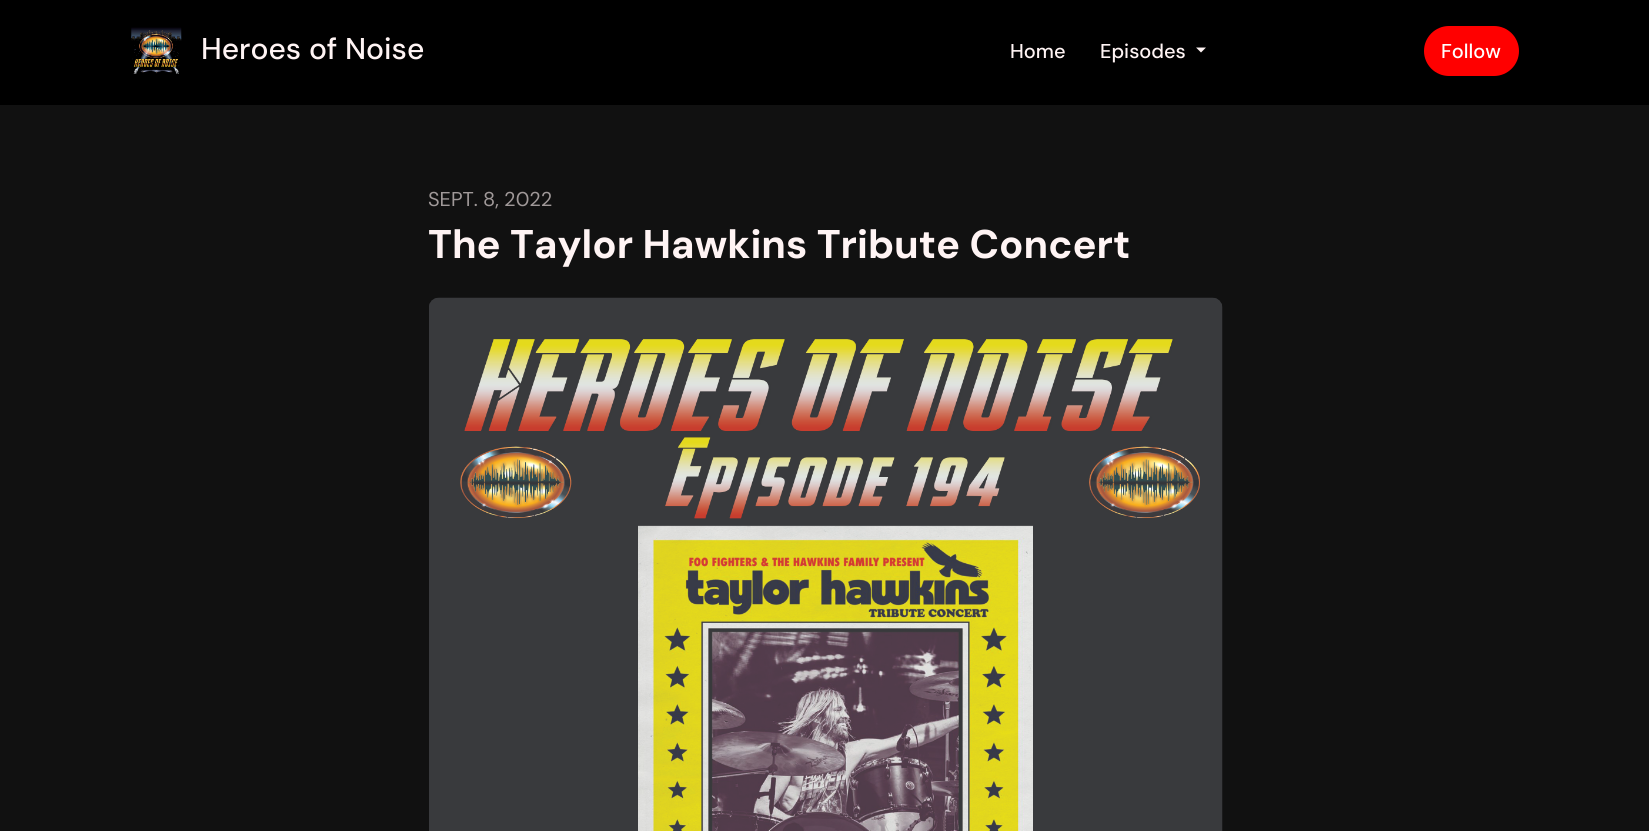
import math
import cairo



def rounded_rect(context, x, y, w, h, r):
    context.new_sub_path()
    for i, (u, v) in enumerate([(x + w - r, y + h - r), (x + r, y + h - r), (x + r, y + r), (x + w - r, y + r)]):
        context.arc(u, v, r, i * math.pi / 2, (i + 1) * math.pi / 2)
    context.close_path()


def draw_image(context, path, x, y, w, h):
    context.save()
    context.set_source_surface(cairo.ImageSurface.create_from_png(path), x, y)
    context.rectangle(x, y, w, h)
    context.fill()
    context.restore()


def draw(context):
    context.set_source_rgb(17 / 255, 17 / 255, 17 / 255)
    context.paint()
    context.set_source_rgb(0, 0, 0)
    context.rectangle(0, 0, 1649, 105)
    context.fill()
    draw_image(context, "images/1.png", 131, 27, 51, 47)
    context.set_source_rgb(1, 244 / 255, 244 / 255)
    context.new_path()
    context.move_to(1196, 47.5)
    context.line_to(1206, 47.5)
    context.line_to(1201, 52.5)
    context.close_path()
    context.fill()
    context.set_source_rgb(1, 0, 0)
    rounded_rect(context, 1424, 26, 95, 50, 25)
    context.fill()
    draw_image(context, "images/2.png", 429, 297, 794, 534)
    context.select_font_face("DM Sans Medium")
    context.set_font_size(30)
    context.set_source_rgb(1, 244 / 255, 244 / 255)
    context.move_to(201, 59)
    context.show_text("Heroes of Noise")
    context.set_font_size(20)
    context.move_to(1010, 58)
    context.show_text("Home")
    context.move_to(1100, 58)
    context.show_text("Episodes")
    context.set_source_rgb(1, 1, 1)
    context.move_to(1441, 58)
    context.show_text("Follow")
    context.select_font_face("DM Sans")
    context.set_source_rgb(160 / 255, 153 / 255, 153 / 255)
    context.move_to(428, 206)
    context.show_text("SEPT. 8, 2022")
    context.select_font_face("DM Sans", cairo.FontSlant.NORMAL, cairo.FontWeight.BOLD)
    context.set_font_size(40)
    context.set_source_rgb(1, 244 / 255, 244 / 255)
    context.move_to(428, 258)
    context.show_text("The Taylor Hawkins Tribute Concert")


surface = cairo.ImageSurface(cairo.Format.RGB24, 1649, 831)
context = cairo.Context(surface)
options = cairo.FontOptions()
options.set_hint_metrics(cairo.HintMetrics.OFF)
options.set_hint_style(cairo.HintStyle.NONE)
context.set_font_options(options)
context.set_miter_limit(4)
draw(context)
surface.write_to_png("out.png")
